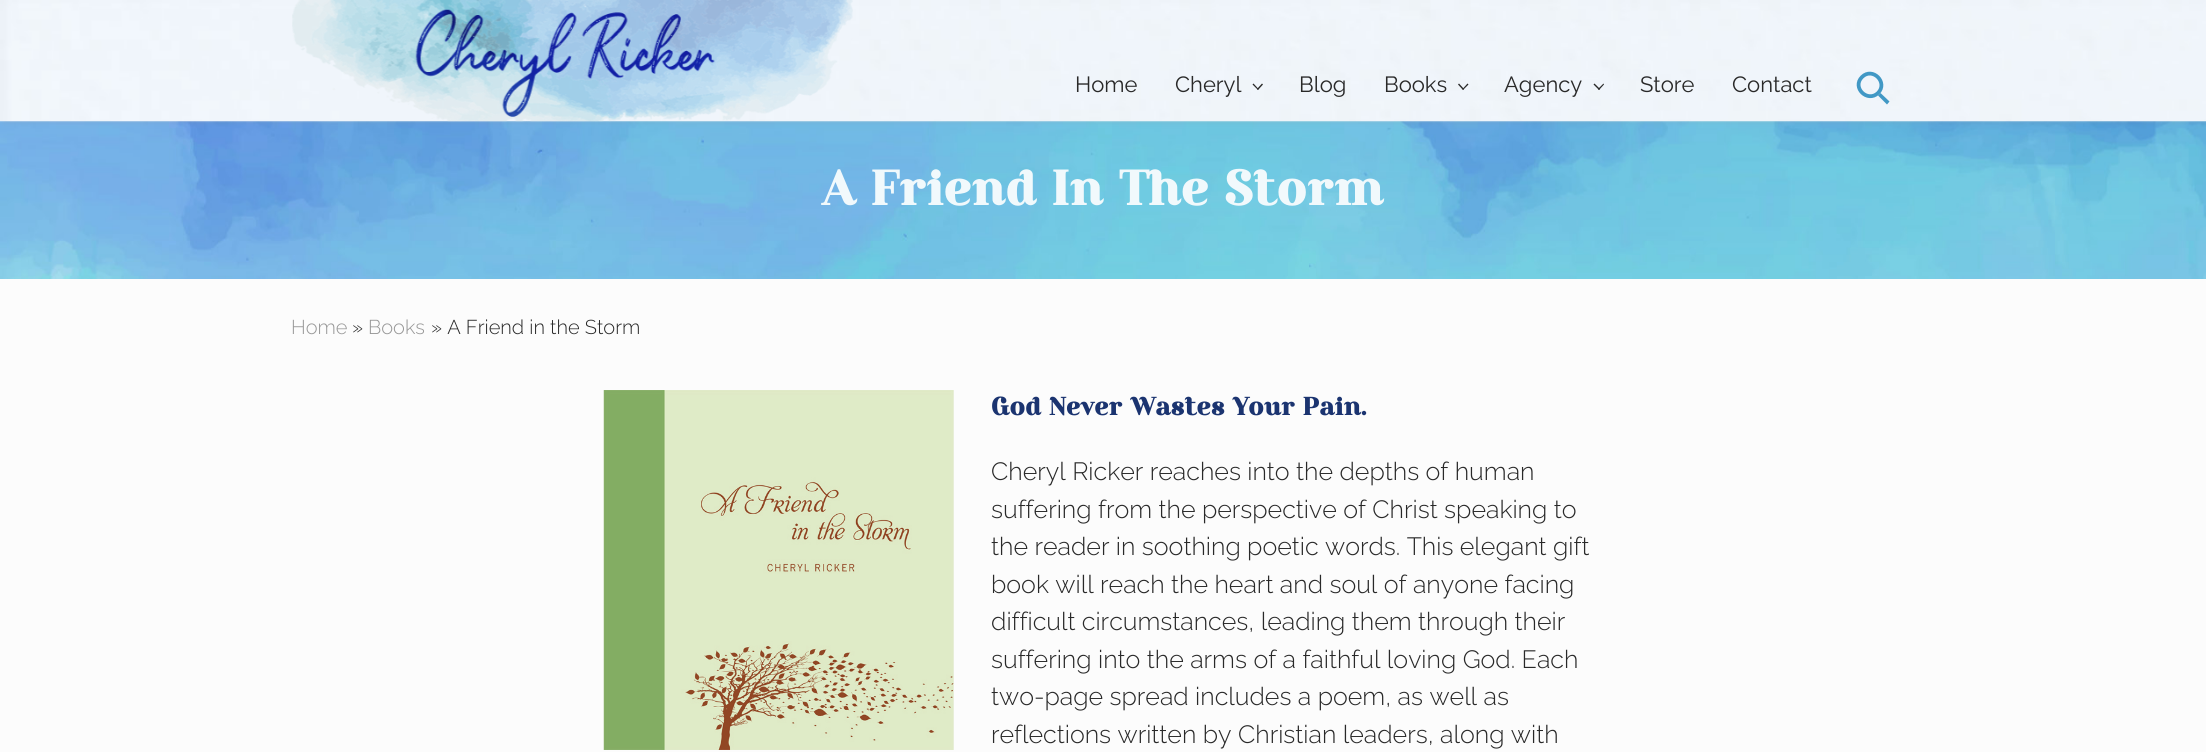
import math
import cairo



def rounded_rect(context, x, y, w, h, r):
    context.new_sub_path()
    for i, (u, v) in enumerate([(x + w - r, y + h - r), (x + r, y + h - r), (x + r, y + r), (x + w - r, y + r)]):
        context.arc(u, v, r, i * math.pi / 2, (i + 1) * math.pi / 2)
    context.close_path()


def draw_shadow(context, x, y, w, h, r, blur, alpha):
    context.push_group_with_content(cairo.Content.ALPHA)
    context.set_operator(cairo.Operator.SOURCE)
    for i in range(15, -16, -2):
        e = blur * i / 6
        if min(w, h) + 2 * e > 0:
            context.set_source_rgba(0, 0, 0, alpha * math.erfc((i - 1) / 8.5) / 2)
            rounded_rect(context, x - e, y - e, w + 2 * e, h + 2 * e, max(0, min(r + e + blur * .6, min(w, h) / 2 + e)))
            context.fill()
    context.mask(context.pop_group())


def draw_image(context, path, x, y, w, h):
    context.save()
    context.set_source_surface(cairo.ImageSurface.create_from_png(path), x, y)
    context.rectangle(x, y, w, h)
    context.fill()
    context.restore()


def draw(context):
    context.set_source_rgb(252 / 255, 252 / 255, 252 / 255)
    context.paint()
    draw_image(context, "images/3.png", 0, 121, 2206, 158)
    context.set_source_rgb(150 / 255, 150 / 255, 150 / 255)
    draw_shadow(context, 4, 0, 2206, 121, 0, 3, 0.3)
    draw_image(context, "images/1.png", 0, 0, 2206, 123)
    draw_image(context, "images/2.png", 292, 0, 561, 122)
    context.set_source_rgb(41 / 255, 41 / 255, 41 / 255)
    context.new_path()
    context.move_to(1262, 83.5)
    context.line_to(1263, 84.5)
    context.line_to(1258, 90)
    context.line_to(1257, 89)
    context.close_path()
    context.fill()
    context.new_path()
    context.move_to(1253.5, 83.5)
    context.line_to(1258.5, 89)
    context.line_to(1258, 90)
    context.line_to(1252.5, 84.5)
    context.close_path()
    context.fill()
    context.new_path()
    context.move_to(1467.5, 83.5)
    context.line_to(1468.5, 84.5)
    context.line_to(1463, 90)
    context.line_to(1462.5, 89)
    context.close_path()
    context.fill()
    context.new_path()
    context.move_to(1459, 83.5)
    context.line_to(1464, 89)
    context.line_to(1463, 90)
    context.line_to(1458, 84.5)
    context.close_path()
    context.fill()
    context.new_path()
    context.move_to(1603.5, 83.5)
    context.line_to(1604, 84.5)
    context.line_to(1599, 90)
    context.line_to(1598, 89)
    context.close_path()
    context.fill()
    context.new_path()
    context.move_to(1594.5, 83.5)
    context.line_to(1600, 89)
    context.line_to(1599, 90)
    context.line_to(1593.5, 84.5)
    context.close_path()
    context.fill()
    context.new_path()
    context.move_to(1862, 77)
    context.curve_to(1872.5, 66.5, 1888.5, 82.5, 1878, 93)
    context.curve_to(1867.5, 103, 1851.5, 87.5, 1862, 77)
    context.close_path()
    context.set_source_rgb(65 / 255, 152 / 255, 197 / 255)
    context.set_line_width(3.8)
    context.stroke()
    context.new_path()
    context.move_to(1878, 95.5)
    context.line_to(1880.5, 93)
    context.line_to(1889.5, 101.5)
    context.line_to(1887, 104.5)
    context.close_path()
    context.fill()
    draw_image(context, "images/4.png", 603, 390, 351, 360)
    context.select_font_face("Raleway")
    context.set_font_size(22)
    context.set_source_rgb(41 / 255, 41 / 255, 41 / 255)
    context.move_to(1075, 92)
    context.show_text("Home")
    context.move_to(1175, 92)
    context.show_text("Cheryl")
    context.move_to(1299, 92)
    context.show_text("Blog")
    context.move_to(1384, 92)
    context.show_text("Books")
    context.move_to(1504, 92)
    context.show_text("Agency")
    context.move_to(1640, 92)
    context.show_text("Store")
    context.move_to(1732, 92)
    context.show_text("Contact")
    context.select_font_face("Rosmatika", cairo.FontSlant.NORMAL, cairo.FontWeight.BOLD)
    context.set_font_size(48.75)
    context.set_source_rgb(241 / 255, 249 / 255, 252 / 255)
    context.move_to(823, 205)
    context.show_text("A Friend In The Storm")
    context.select_font_face("Raleway Light")
    context.set_font_size(20)
    context.set_source_rgb(151 / 255, 151 / 255, 151 / 255)
    context.move_to(291, 334)
    context.show_text("Home")
    context.set_source_rgb(41 / 255, 41 / 255, 41 / 255)
    context.move_to(352, 334)
    context.show_text("»")
    context.set_source_rgb(151 / 255, 151 / 255, 151 / 255)
    context.move_to(368, 334)
    context.show_text("Books")
    context.set_source_rgb(41 / 255, 41 / 255, 41 / 255)
    context.move_to(431, 334)
    context.show_text("» A Friend in the Storm")
    context.select_font_face("Rosmatika", cairo.FontSlant.NORMAL, cairo.FontWeight.BOLD)
    context.set_font_size(25)
    context.set_source_rgb(27 / 255, 52 / 255, 112 / 255)
    context.move_to(991, 415)
    context.show_text("God Never Wastes Your Pain.")
    context.select_font_face("Raleway Light")
    context.set_source_rgb(41 / 255, 41 / 255, 41 / 255)
    context.move_to(991, 480)
    context.show_text("Cheryl Ricker reaches into the depths of human")
    context.move_to(991, 518)
    context.show_text("suffering from the perspective of Christ speaking to")
    context.move_to(991, 555)
    context.show_text("the reader in soothing poetic words. This elegant gift")
    context.move_to(991, 593)
    context.show_text("book will reach the heart and soul of anyone facing")
    context.move_to(991, 630)
    context.show_text("difficult circumstances, leading them through their")
    context.move_to(991, 668)
    context.show_text("suffering into the arms of a faithful loving God. Each")
    context.move_to(991, 705)
    context.show_text("two-page spread includes a poem, as well as")
    context.move_to(991, 743)
    context.show_text("reflections written by Christian leaders, along with")


surface = cairo.ImageSurface(cairo.Format.RGB24, 2206, 752)
context = cairo.Context(surface)
options = cairo.FontOptions()
options.set_hint_metrics(cairo.HintMetrics.OFF)
options.set_hint_style(cairo.HintStyle.NONE)
context.set_font_options(options)
context.set_miter_limit(4)
draw(context)
surface.write_to_png("out.png")
